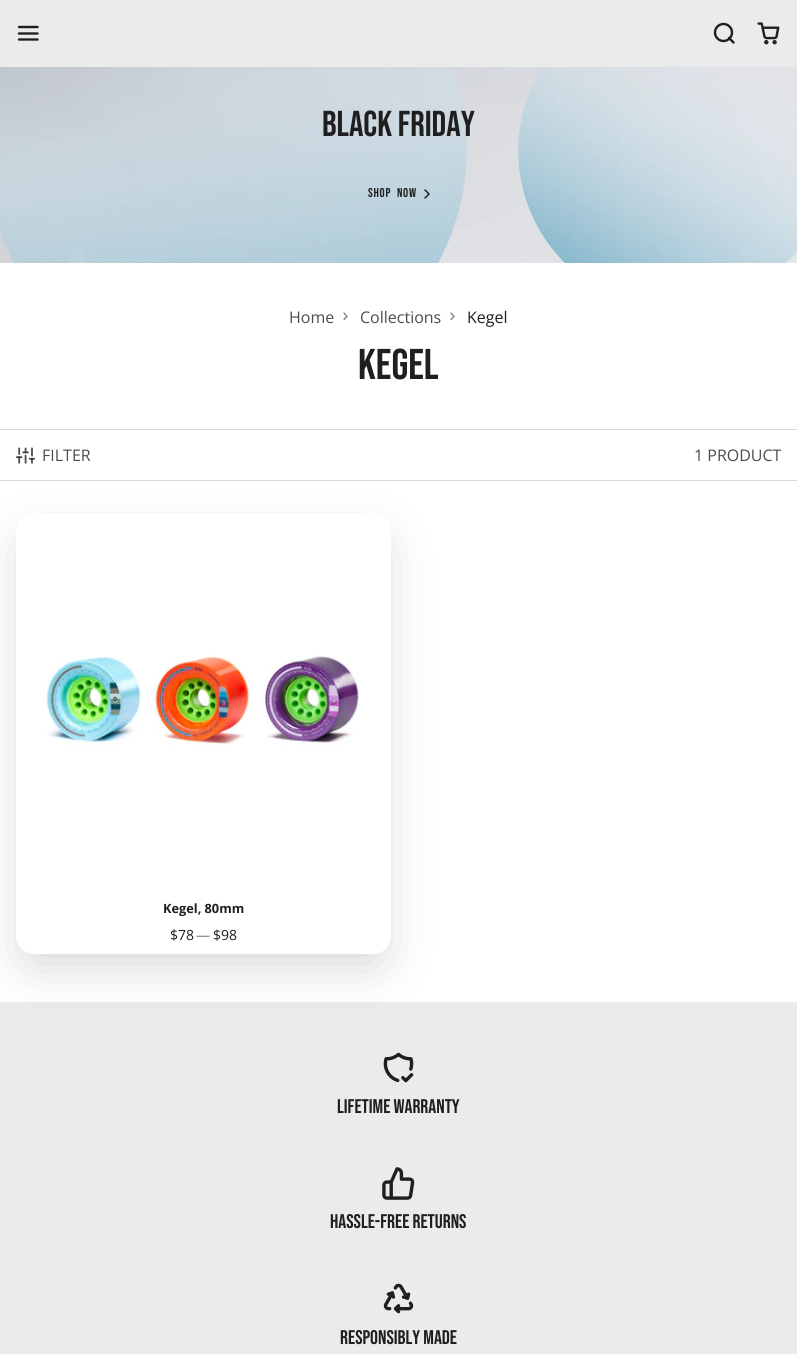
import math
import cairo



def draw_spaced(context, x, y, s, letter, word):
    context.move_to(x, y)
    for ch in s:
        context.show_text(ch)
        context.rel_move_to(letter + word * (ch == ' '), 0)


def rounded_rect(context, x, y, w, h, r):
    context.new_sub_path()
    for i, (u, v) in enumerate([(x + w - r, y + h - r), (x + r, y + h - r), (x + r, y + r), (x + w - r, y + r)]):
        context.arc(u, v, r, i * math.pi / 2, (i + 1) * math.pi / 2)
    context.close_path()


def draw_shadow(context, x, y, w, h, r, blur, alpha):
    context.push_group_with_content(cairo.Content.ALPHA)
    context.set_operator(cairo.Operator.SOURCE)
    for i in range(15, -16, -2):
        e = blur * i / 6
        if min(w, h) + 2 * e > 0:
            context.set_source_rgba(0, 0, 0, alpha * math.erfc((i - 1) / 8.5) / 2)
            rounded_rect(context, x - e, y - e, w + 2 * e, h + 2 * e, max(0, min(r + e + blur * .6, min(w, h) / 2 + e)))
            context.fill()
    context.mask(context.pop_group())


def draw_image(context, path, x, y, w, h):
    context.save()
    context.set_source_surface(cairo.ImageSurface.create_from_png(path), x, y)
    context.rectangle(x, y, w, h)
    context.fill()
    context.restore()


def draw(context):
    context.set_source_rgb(1, 1, 1)
    context.paint()
    context.set_source_rgb(235 / 255, 235 / 255, 235 / 255)
    context.rectangle(0, 0, 797, 67)
    context.fill()
    context.new_path()
    context.move_to(19, 33.5)
    context.line_to(37.5, 33.5)
    context.move_to(19, 27)
    context.line_to(37.5, 27)
    context.move_to(19, 39.5)
    context.line_to(37.5, 39.5)
    context.set_source_rgb(31 / 255, 31 / 255, 32 / 255)
    context.set_line_width(2.4)
    context.set_line_cap(cairo.LineCap.ROUND)
    context.set_line_join(cairo.LineJoin.ROUND)
    context.stroke()
    context.arc(723.5, 32.5, 8.5, 0, 2 * math.pi)
    context.set_line_cap(cairo.LineCap.BUTT)
    context.set_line_join(cairo.LineJoin.MITER)
    context.stroke()
    context.new_path()
    context.move_to(733.5, 42.5)
    context.line_to(729, 38)
    context.set_line_cap(cairo.LineCap.ROUND)
    context.set_line_join(cairo.LineJoin.ROUND)
    context.stroke()
    draw_image(context, "images/1.png", 757, 22, 23, 23)
    draw_image(context, "images/2.png", 0, 67, 797, 196)
    context.new_path()
    context.move_to(425, 198)
    context.line_to(429, 194)
    context.line_to(425, 190)
    context.set_line_width(1.5)
    context.stroke()
    context.new_path()
    context.move_to(344, 319.5)
    context.line_to(347, 316.5)
    context.line_to(344, 313)
    context.set_source_rgb(112 / 255, 112 / 255, 112 / 255)
    context.set_line_width(1.2)
    context.stroke()
    context.new_path()
    context.move_to(451, 319.5)
    context.line_to(454, 316.5)
    context.line_to(451, 313)
    context.stroke()
    context.set_source_rgb(217 / 255, 217 / 255, 217 / 255)
    context.rectangle(0, 429, 797, 1)
    context.fill()
    context.set_source_rgb(235 / 255, 235 / 255, 235 / 255)
    context.rectangle(0, 1002, 797, 352)
    context.fill()
    context.set_source_rgb(31 / 255, 31 / 255, 32 / 255)
    draw_shadow(context, 26, 541, 355, 421, 8, 25, 0.2)
    context.set_source_rgb(217 / 255, 217 / 255, 217 / 255)
    context.rectangle(0, 480, 797, 1)
    context.fill()
    draw_image(context, "images/3.png", 16, 447, 19, 17)
    context.set_source_rgb(1, 1, 1)
    rounded_rect(context, 16, 513, 375, 441, 18)
    context.fill()
    draw_image(context, "images/4.png", 42, 655, 317, 91)
    draw_image(context, "images/5.png", 383, 1052, 31, 31)
    draw_image(context, "images/6.png", 382, 1167, 33, 33)
    draw_image(context, "images/7.png", 383, 1283, 31, 31)
    context.select_font_face("Bebas Neue")
    context.set_font_size(36)
    context.set_source_rgb(31 / 255, 31 / 255, 32 / 255)
    context.move_to(322, 136)
    context.show_text("BLACK FRIDAY")
    context.set_font_size(12.75)
    draw_spaced(context, 368, 197, "SHOP NOW", 0.75, 3)
    context.select_font_face("Open Sans")
    context.set_font_size(16)
    context.set_source_rgb(76 / 255, 76 / 255, 77 / 255)
    context.move_to(289, 323)
    context.show_text("Home")
    context.move_to(360, 323)
    context.show_text("Collections")
    context.set_source_rgb(31 / 255, 31 / 255, 32 / 255)
    context.move_to(467, 323)
    context.show_text("Kegel")
    context.select_font_face("Bebas Neue")
    context.set_font_size(43)
    context.move_to(358, 379)
    context.show_text("KEGEL")
    context.select_font_face("Open Sans")
    context.set_font_size(16)
    context.set_source_rgb(76 / 255, 76 / 255, 77 / 255)
    context.move_to(42, 461)
    context.show_text("FILTER")
    context.move_to(694, 461)
    context.show_text("1 PRODUCT")
    context.select_font_face("Open Sans", cairo.FontSlant.NORMAL, cairo.FontWeight.BOLD)
    context.set_font_size(12.75)
    context.set_source_rgb(31 / 255, 31 / 255, 32 / 255)
    context.move_to(163, 913)
    context.show_text("Kegel, 80mm")
    context.select_font_face("Open Sans")
    context.set_font_size(14)
    context.move_to(170, 940)
    context.show_text("$78")
    context.set_source_rgb(112 / 255, 112 / 255, 112 / 255)
    context.move_to(196, 940)
    context.show_text("—")
    context.set_source_rgb(31 / 255, 31 / 255, 32 / 255)
    context.move_to(213, 940)
    context.show_text("$98")
    context.select_font_face("Bebas Neue")
    context.set_font_size(19.75)
    context.move_to(337, 1113)
    context.show_text("LIFETIME WARRANTY")
    context.move_to(330, 1228)
    context.show_text("HASSLE-FREE RETURNS")
    context.move_to(340, 1344)
    context.show_text("RESPONSIBLY MADE")


surface = cairo.ImageSurface(cairo.Format.RGB24, 797, 1354)
context = cairo.Context(surface)
options = cairo.FontOptions()
options.set_hint_metrics(cairo.HintMetrics.OFF)
options.set_hint_style(cairo.HintStyle.NONE)
context.set_font_options(options)
context.set_miter_limit(4)
draw(context)
surface.write_to_png("out.png")
